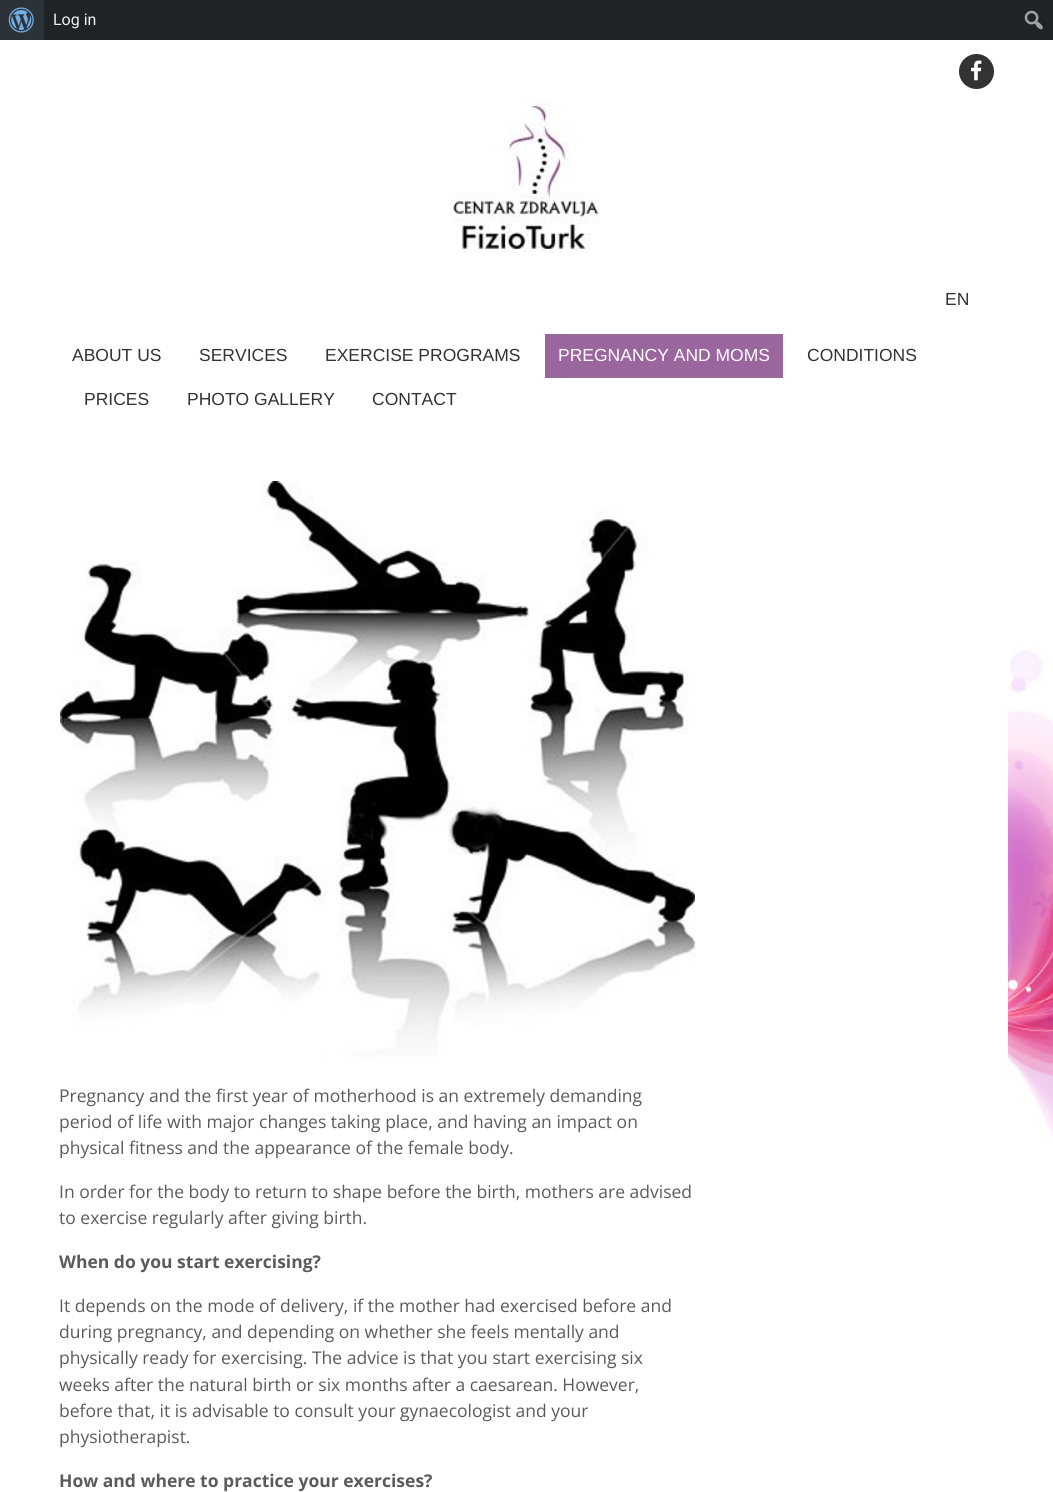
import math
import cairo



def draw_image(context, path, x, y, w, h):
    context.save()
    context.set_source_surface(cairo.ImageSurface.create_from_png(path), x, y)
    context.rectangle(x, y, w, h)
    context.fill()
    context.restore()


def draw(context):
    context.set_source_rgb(1, 1, 1)
    context.paint()
    draw_image(context, "images/1.png", 0, 434, 1053, 1058)
    context.set_source_rgb(29 / 255, 35 / 255, 39 / 255)
    context.rectangle(44, 0, 1009, 40)
    context.fill()
    context.set_source_rgb(44 / 255, 51 / 255, 56 / 255)
    context.rectangle(0, 0, 44, 40)
    context.fill()
    draw_image(context, "images/2.png", 8, 7, 26, 26)
    draw_image(context, "images/3.png", 1024, 10, 19, 20)
    context.set_source_rgb(51 / 255, 51 / 255, 51 / 255)
    context.arc(976.5, 71.5, 17.5, 0, 2 * math.pi)
    context.fill()
    draw_image(context, "images/4.png", 971, 60, 11, 21)
    draw_image(context, "images/5.png", 450, 102, 150, 151)
    context.set_source_rgb(155 / 255, 102 / 255, 158 / 255)
    context.rectangle(545, 334, 238, 44)
    context.fill()
    context.set_source_rgb(1, 1, 1)
    context.rectangle(287, 434, 721, 939)
    context.fill()
    draw_image(context, "images/6.png", 60, 481, 635, 576)
    context.select_font_face("Roboto")
    context.set_font_size(16)
    context.set_source_rgb(240 / 255, 240 / 255, 241 / 255)
    context.move_to(53, 25)
    context.show_text("Log in")
    context.select_font_face("Liberation Sans")
    context.set_font_size(17.5)
    context.set_source_rgb(51 / 255, 51 / 255, 51 / 255)
    context.move_to(945, 305)
    context.show_text("EN")
    context.move_to(72, 361)
    context.show_text("ABOUT US")
    context.move_to(199, 361)
    context.show_text("SERVICES")
    context.move_to(325, 361)
    context.show_text("EXERCISE PROGRAMS")
    context.set_source_rgb(1, 1, 1)
    context.move_to(558, 361)
    context.show_text("PREGNANCY AND MOMS")
    context.set_source_rgb(51 / 255, 51 / 255, 51 / 255)
    context.move_to(807, 361)
    context.show_text("CONDITIONS")
    context.move_to(84, 405)
    context.show_text("PRICES")
    context.move_to(187, 405)
    context.show_text("PHOTO GALLERY")
    context.move_to(372, 405)
    context.show_text("CONTACT")
    context.select_font_face("Open Sans")
    context.set_source_rgb(91 / 255, 91 / 255, 91 / 255)
    context.move_to(59, 1102)
    context.show_text("Pregnancy and the first year of motherhood is an extremely demanding")
    context.move_to(59, 1128)
    context.show_text("period of life with major changes taking place, and having an impact on")
    context.move_to(59, 1154)
    context.show_text("physical fitness and the appearance of the female body.")
    context.move_to(59, 1198)
    context.show_text("In order for the body to return to shape before the birth, mothers are advised")
    context.move_to(59, 1224)
    context.show_text("to exercise regularly after giving birth.")
    context.select_font_face("Open Sans", cairo.FontSlant.NORMAL, cairo.FontWeight.BOLD)
    context.move_to(59, 1268)
    context.show_text("When do you start exercising?")
    context.select_font_face("Open Sans")
    context.move_to(59, 1312)
    context.show_text("It depends on the mode of delivery, if the mother had exercised before and")
    context.move_to(59, 1338)
    context.show_text("during pregnancy, and depending on whether she feels mentally and")
    context.move_to(59, 1364)
    context.show_text("physically ready for exercising. The advice is that you start exercising six")
    context.move_to(59, 1391)
    context.show_text("weeks after the natural birth or six months after a caesarean. However,")
    context.move_to(59, 1417)
    context.show_text("before that, it is advisable to consult your gynaecologist and your")
    context.move_to(59, 1443)
    context.show_text("physiotherapist.")
    context.select_font_face("Open Sans", cairo.FontSlant.NORMAL, cairo.FontWeight.BOLD)
    context.move_to(59, 1487)
    context.show_text("How and where to practice your exercises?")


surface = cairo.ImageSurface(cairo.Format.RGB24, 1053, 1492)
context = cairo.Context(surface)
options = cairo.FontOptions()
options.set_hint_metrics(cairo.HintMetrics.OFF)
options.set_hint_style(cairo.HintStyle.NONE)
context.set_font_options(options)
context.set_miter_limit(4)
draw(context)
surface.write_to_png("out.png")
